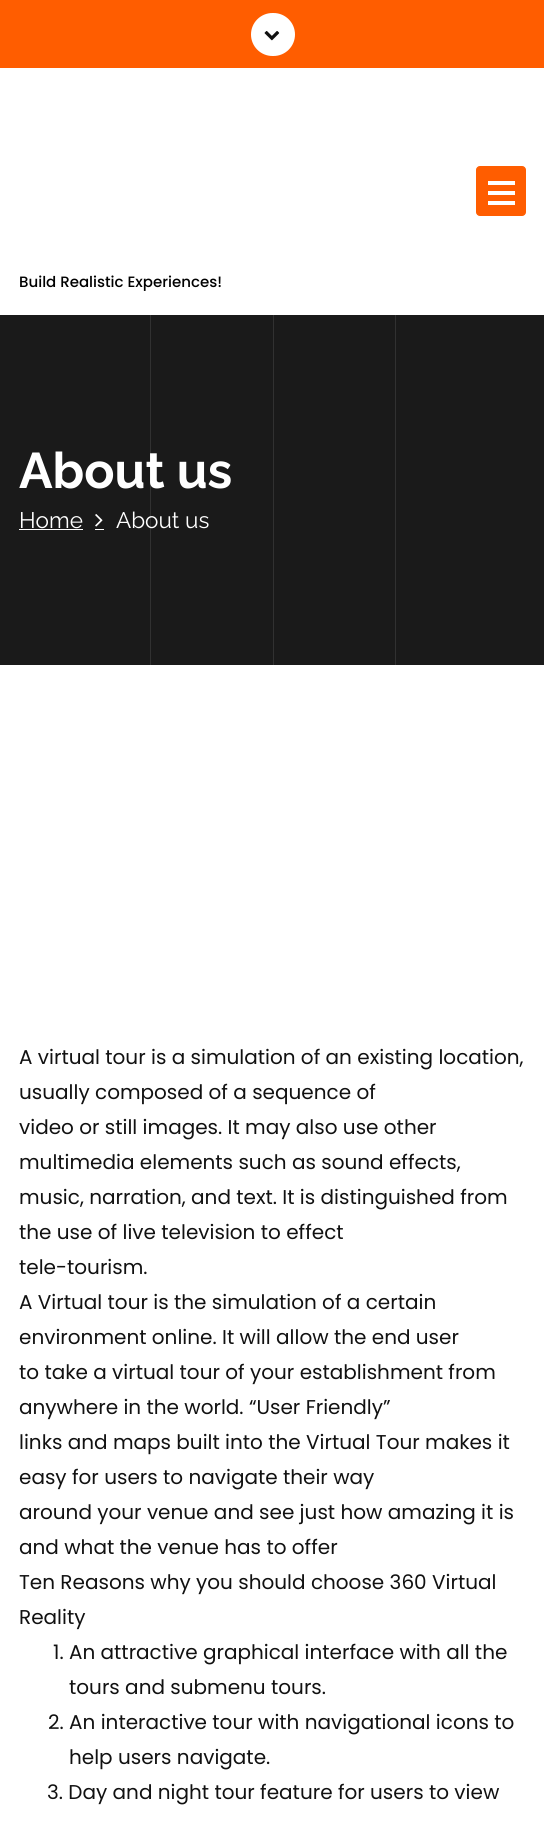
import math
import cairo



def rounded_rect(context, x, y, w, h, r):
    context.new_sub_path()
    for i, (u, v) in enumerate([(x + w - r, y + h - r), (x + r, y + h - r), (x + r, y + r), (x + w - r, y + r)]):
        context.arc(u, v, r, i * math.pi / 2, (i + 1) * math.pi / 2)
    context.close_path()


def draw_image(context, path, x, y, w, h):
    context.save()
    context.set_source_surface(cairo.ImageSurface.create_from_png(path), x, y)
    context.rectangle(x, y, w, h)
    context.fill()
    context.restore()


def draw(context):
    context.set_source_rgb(1, 1, 1)
    context.paint()
    context.set_source_rgb(1, 93 / 255, 0)
    context.rectangle(0, 0, 544, 68)
    context.fill()
    context.set_source_rgb(1, 1, 1)
    rounded_rect(context, 251, 13, 44, 43, 21.5)
    context.fill()
    draw_image(context, "images/1.png", 264, 31, 16, 10)
    context.set_source_rgb(1, 93 / 255, 0)
    rounded_rect(context, 476.5, 166.5, 49, 49, 3.5)
    context.fill_preserve()
    context.set_line_width(1)
    context.stroke()
    context.set_source_rgb(1, 1, 1)
    context.rectangle(488, 181, 27, 4)
    context.fill()
    context.rectangle(488, 191, 27, 4)
    context.fill()
    context.rectangle(488, 201, 27, 4)
    context.fill()
    context.set_source_rgb(26 / 255, 26 / 255, 26 / 255)
    context.rectangle(0, 315, 544, 350)
    context.fill()
    context.set_source_rgb(1, 1, 1)
    context.rectangle(19, 529, 64, 1)
    context.fill()
    context.rectangle(95, 529, 9, 1)
    context.fill()
    draw_image(context, "images/2.png", 95, 514, 8, 13)
    context.set_source_rgb(49 / 255, 49 / 255, 49 / 255)
    context.rectangle(150, 315, 1, 350)
    context.fill()
    context.rectangle(273, 315, 1, 350)
    context.fill()
    context.rectangle(395, 315, 1, 350)
    context.fill()
    context.select_font_face("Poppins Medium")
    context.set_font_size(15)
    context.set_source_rgb(0, 0, 0)
    context.move_to(19, 287)
    context.show_text("Build Realistic Experiences!")
    context.select_font_face("Raleway", cairo.FontSlant.NORMAL, cairo.FontWeight.BOLD)
    context.set_font_size(50)
    context.set_source_rgb(1, 1, 1)
    context.move_to(19, 488)
    context.show_text("About us")
    context.select_font_face("Raleway")
    context.set_font_size(22.5)
    context.move_to(19, 528)
    context.show_text("Home")
    context.move_to(116, 528)
    context.show_text("About us")
    context.select_font_face("Poppins")
    context.set_font_size(20)
    context.set_source_rgb(17 / 255, 17 / 255, 17 / 255)
    context.move_to(19, 1064)
    context.show_text("A virtual tour is a simulation of an existing location,")
    context.move_to(19, 1099)
    context.show_text("usually composed of a sequence of")
    context.move_to(19, 1134)
    context.show_text("video or still images. It may also use other")
    context.move_to(19, 1169)
    context.show_text("multimedia elements such as sound effects,")
    context.move_to(19, 1204)
    context.show_text("music, narration, and text. It is distinguished from")
    context.move_to(19, 1239)
    context.show_text("the use of live television to effect")
    context.move_to(19, 1274)
    context.show_text("tele-tourism.")
    context.move_to(19, 1309)
    context.show_text("A Virtual tour is the simulation of a certain")
    context.move_to(19, 1344)
    context.show_text("environment online. It will allow the end user")
    context.move_to(19, 1379)
    context.show_text("to take a virtual tour of your establishment from")
    context.move_to(19, 1414)
    context.show_text("anywhere in the world. “User Friendly”")
    context.move_to(19, 1449)
    context.show_text("links and maps built into the Virtual Tour makes it")
    context.move_to(19, 1484)
    context.show_text("easy for users to navigate their way")
    context.move_to(19, 1519)
    context.show_text("around your venue and see just how amazing it is")
    context.move_to(19, 1554)
    context.show_text("and what the venue has to offer")
    context.move_to(19, 1589)
    context.show_text("Ten Reasons why you should choose 360 Virtual")
    context.move_to(19, 1624)
    context.show_text("Reality")
    context.move_to(53, 1659)
    context.show_text("1. An attractive graphical interface with all the")
    context.move_to(69, 1694)
    context.show_text("tours and submenu tours.")
    context.move_to(48, 1729)
    context.show_text("2. An interactive tour with navigational icons to")
    context.move_to(69, 1764)
    context.show_text("help users navigate.")
    context.move_to(47, 1799)
    context.show_text("3. Day and night tour feature for users to view")


surface = cairo.ImageSurface(cairo.Format.RGB24, 544, 1821)
context = cairo.Context(surface)
options = cairo.FontOptions()
options.set_hint_metrics(cairo.HintMetrics.OFF)
options.set_hint_style(cairo.HintStyle.NONE)
context.set_font_options(options)
context.set_miter_limit(4)
draw(context)
surface.write_to_png("out.png")
